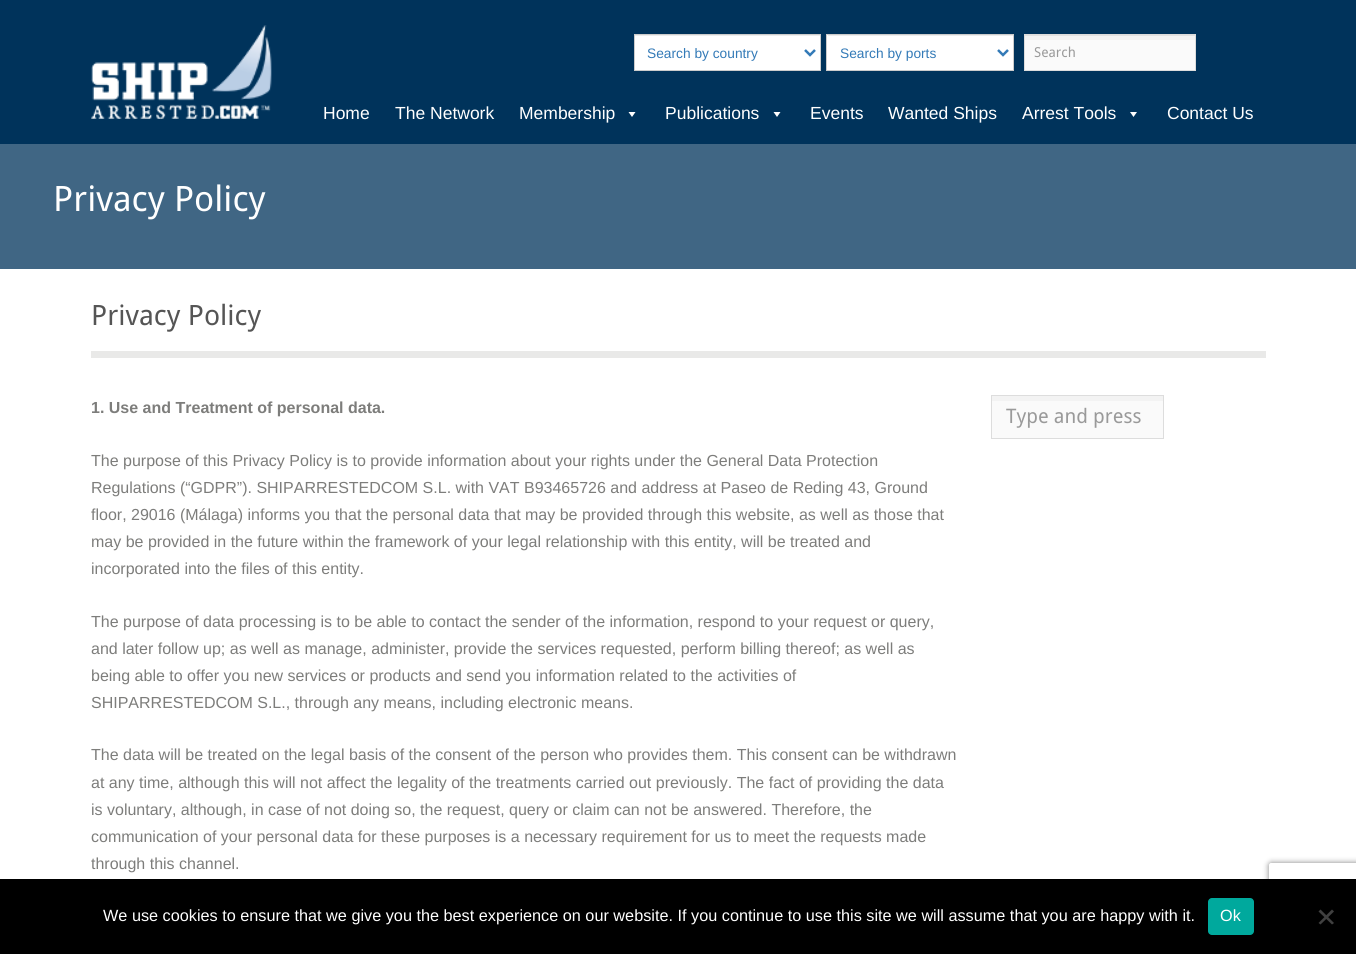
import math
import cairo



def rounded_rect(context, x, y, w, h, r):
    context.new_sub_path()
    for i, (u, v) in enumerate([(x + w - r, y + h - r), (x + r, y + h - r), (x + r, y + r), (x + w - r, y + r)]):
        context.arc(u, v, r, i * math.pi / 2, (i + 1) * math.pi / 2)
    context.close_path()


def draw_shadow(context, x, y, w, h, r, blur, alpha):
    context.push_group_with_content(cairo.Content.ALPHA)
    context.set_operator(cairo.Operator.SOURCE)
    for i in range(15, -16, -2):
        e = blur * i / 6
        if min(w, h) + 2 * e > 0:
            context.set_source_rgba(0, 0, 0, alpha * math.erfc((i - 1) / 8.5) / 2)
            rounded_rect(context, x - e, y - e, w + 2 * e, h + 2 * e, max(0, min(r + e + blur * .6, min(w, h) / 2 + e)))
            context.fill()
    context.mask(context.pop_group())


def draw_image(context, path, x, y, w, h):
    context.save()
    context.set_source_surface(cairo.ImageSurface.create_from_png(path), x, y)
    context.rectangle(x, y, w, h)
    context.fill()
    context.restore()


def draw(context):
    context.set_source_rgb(1, 1, 1)
    context.paint()
    context.set_source_rgb(0, 51 / 255, 91 / 255)
    context.rectangle(0, 0, 1356, 144)
    context.fill()
    draw_image(context, "images/1.png", 91, 25, 181, 94)
    context.set_source_rgb(1, 1, 1)
    context.rectangle(635, 36, 185, 34)
    context.fill()
    context.set_source_rgb(236 / 255, 236 / 255, 236 / 255)
    context.rectangle(635, 35, 185, 1)
    context.fill()
    context.rectangle(634.5, 34.5, 186, 36)
    context.set_source_rgb(204 / 255, 204 / 255, 204 / 255)
    context.set_line_width(1)
    context.stroke()
    context.new_path()
    context.move_to(805, 50)
    context.line_to(810, 55)
    context.line_to(815, 50)
    context.set_source_rgb(51 / 255, 122 / 255, 183 / 255)
    context.set_line_width(2.5)
    context.stroke()
    context.set_source_rgb(1, 1, 1)
    context.rectangle(827, 35, 186, 35)
    context.fill()
    context.set_source_rgb(236 / 255, 236 / 255, 236 / 255)
    context.rectangle(828, 35, 185, 1)
    context.fill()
    context.rectangle(826.5, 34.5, 187, 36)
    context.set_source_rgb(204 / 255, 204 / 255, 204 / 255)
    context.set_line_width(1)
    context.stroke()
    context.new_path()
    context.move_to(998, 50)
    context.line_to(1003, 55)
    context.line_to(1008, 50)
    context.set_source_rgb(51 / 255, 122 / 255, 183 / 255)
    context.set_line_width(2.5)
    context.stroke()
    context.set_source_rgb(250 / 255, 250 / 255, 250 / 255)
    context.rectangle(1025, 40, 170, 30)
    context.fill()
    context.set_source_rgb(243 / 255, 243 / 255, 243 / 255)
    context.rectangle(1024, 36, 172, 4)
    context.fill()
    context.set_source_rgb(225 / 255, 225 / 255, 225 / 255)
    context.rectangle(1025, 35, 170, 1)
    context.fill()
    context.rectangle(1024.5, 34.5, 171, 36)
    context.set_source_rgb(221 / 255, 221 / 255, 221 / 255)
    context.set_line_width(1)
    context.stroke()
    context.set_source_rgb(1, 1, 1)
    context.new_path()
    context.move_to(635.5, 112)
    context.line_to(632, 117)
    context.line_to(628.5, 112)
    context.close_path()
    context.fill()
    context.new_path()
    context.move_to(780.5, 112)
    context.line_to(777, 117)
    context.line_to(773.5, 112)
    context.close_path()
    context.fill()
    context.new_path()
    context.move_to(1137, 112)
    context.line_to(1133.5, 117)
    context.line_to(1130, 112)
    context.close_path()
    context.fill()
    context.set_source_rgb(64 / 255, 102 / 255, 132 / 255)
    context.rectangle(0, 144, 1356, 125)
    context.fill()
    context.set_source_rgb(233 / 255, 233 / 255, 232 / 255)
    context.rectangle(91, 351, 1175, 7)
    context.fill()
    context.set_source_rgb(250 / 255, 250 / 255, 250 / 255)
    context.rectangle(992, 401, 171, 37)
    context.fill()
    context.set_source_rgb(243 / 255, 243 / 255, 243 / 255)
    context.rectangle(991, 396, 173, 5)
    context.fill()
    context.rectangle(991.5, 395.5, 172, 43)
    context.set_source_rgb(221 / 255, 221 / 255, 221 / 255)
    context.stroke()
    context.save()
    context.set_fill_rule(cairo.FillRule.EVEN_ODD)
    context.new_path()
    context.move_to(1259, 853)
    context.line_to(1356, 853)
    context.line_to(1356, 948)
    context.line_to(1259, 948)
    context.close_path()
    context.move_to(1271.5, 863)
    context.line_to(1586.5, 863)
    context.curve_to(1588, 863, 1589, 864, 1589, 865.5)
    context.line_to(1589, 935.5)
    context.curve_to(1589, 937, 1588, 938, 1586.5, 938)
    context.line_to(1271.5, 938)
    context.curve_to(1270, 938, 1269, 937, 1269, 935.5)
    context.line_to(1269, 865.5)
    context.curve_to(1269, 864, 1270, 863, 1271.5, 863)
    context.close_path()
    context.clip()
    context.set_source_rgb(128 / 255, 128 / 255, 128 / 255)
    draw_shadow(context, 1269, 863, 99, 75, 2.5, 3, 1)
    context.restore()
    context.set_source_rgb(0, 0, 0)
    context.rectangle(0, 879, 1356, 75)
    context.fill()
    context.set_source_rgb(0, 169 / 255, 157 / 255)
    rounded_rect(context, 1208, 898, 46, 37, 4)
    context.fill()
    context.set_source_rgb(64 / 255, 64 / 255, 64 / 255)
    context.new_path()
    context.move_to(1332, 909.5)
    context.line_to(1334, 911.5)
    context.line_to(1320.5, 924.5)
    context.line_to(1318.5, 923)
    context.close_path()
    context.fill()
    context.new_path()
    context.move_to(1318.5, 911.5)
    context.line_to(1320.5, 909.5)
    context.line_to(1334, 923)
    context.line_to(1332, 924.5)
    context.close_path()
    context.fill()
    context.select_font_face("Liberation Sans")
    context.set_font_size(13.75)
    context.set_source_rgb(51 / 255, 122 / 255, 183 / 255)
    context.move_to(647, 58)
    context.show_text("Search by country")
    context.move_to(840, 58)
    context.show_text("Search by ports")
    context.select_font_face("Droid Sans")
    context.set_source_rgb(154 / 255, 154 / 255, 154 / 255)
    context.move_to(1034, 57)
    context.show_text("Search")
    context.select_font_face("Liberation Sans")
    context.set_font_size(17.5)
    context.set_source_rgb(1, 1, 1)
    context.move_to(323, 119)
    context.show_text("Home")
    context.move_to(395, 119)
    context.show_text("The Network")
    context.move_to(519, 119)
    context.show_text("Membership")
    context.move_to(665, 119)
    context.show_text("Publications")
    context.move_to(810, 119)
    context.show_text("Events")
    context.move_to(888, 119)
    context.show_text("Wanted Ships")
    context.move_to(1022, 119)
    context.show_text("Arrest Tools")
    context.move_to(1167, 119)
    context.show_text("Contact Us")
    context.select_font_face("Droid Sans")
    context.set_font_size(35)
    context.move_to(53, 211)
    context.show_text("Privacy Policy")
    context.set_font_size(28)
    context.set_source_rgb(85 / 255, 85 / 255, 85 / 255)
    context.move_to(91, 325)
    context.show_text("Privacy Policy")
    context.select_font_face("Liberation Sans", cairo.FontSlant.NORMAL, cairo.FontWeight.BOLD)
    context.set_font_size(16)
    context.set_source_rgb(125 / 255, 125 / 255, 123 / 255)
    context.move_to(91, 413)
    context.show_text("1. Use and Treatment of personal data.")
    context.select_font_face("Liberation Sans")
    context.move_to(91, 466)
    context.show_text("The purpose of this Privacy Policy is to provide information about your rights under the General Data Protection")
    context.move_to(91, 493)
    context.show_text("Regulations (“GDPR”). SHIPARRESTEDCOM S.L. with VAT B93465726 and address at Paseo de Reding 43, Ground")
    context.move_to(91, 520)
    context.show_text("floor, 29016 (Málaga) informs you that the personal data that may be provided through this website, as well as those that")
    context.move_to(91, 547)
    context.show_text("may be provided in the future within the framework of your legal relationship with this entity, will be treated and")
    context.move_to(91, 574)
    context.show_text("incorporated into the files of this entity.")
    context.move_to(91, 627)
    context.show_text("The purpose of data processing is to be able to contact the sender of the information, respond to your request or query,")
    context.move_to(91, 654)
    context.show_text("and later follow up; as well as manage, administer, provide the services requested, perform billing thereof; as well as")
    context.move_to(91, 681)
    context.show_text("being able to offer you new services or products and send you information related to the activities of")
    context.move_to(91, 708)
    context.show_text("SHIPARRESTEDCOM S.L., through any means, including electronic means.")
    context.move_to(91, 760)
    context.show_text("The data will be treated on the legal basis of the consent of the person who provides them. This consent can be withdrawn")
    context.move_to(91, 788)
    context.show_text("at any time, although this will not affect the legality of the treatments carried out previously. The fact of providing the data")
    context.move_to(91, 815)
    context.show_text("is voluntary, although, in case of not doing so, the request, query or claim can not be answered. Therefore, the")
    context.move_to(91, 842)
    context.show_text("communication of your personal data for these purposes is a necessary requirement for us to meet the requests made")
    context.move_to(91, 869)
    context.show_text("through this channel.")
    context.select_font_face("Droid Sans")
    context.set_font_size(20)
    context.set_source_rgb(154 / 255, 154 / 255, 154 / 255)
    context.move_to(1006, 423)
    context.show_text("Type and press")
    context.select_font_face("Liberation Sans")
    context.set_font_size(16.25)
    context.set_source_rgb(1, 1, 1)
    context.move_to(103, 921)
    context.show_text("We use cookies to ensure that we give you the best experience on our website. If you continue to use this site we will assume that you are happy with it.")
    context.move_to(1220, 921)
    context.show_text("Ok")


surface = cairo.ImageSurface(cairo.Format.RGB24, 1356, 954)
context = cairo.Context(surface)
options = cairo.FontOptions()
options.set_hint_metrics(cairo.HintMetrics.OFF)
options.set_hint_style(cairo.HintStyle.NONE)
context.set_font_options(options)
context.set_miter_limit(4)
draw(context)
surface.write_to_png("out.png")
